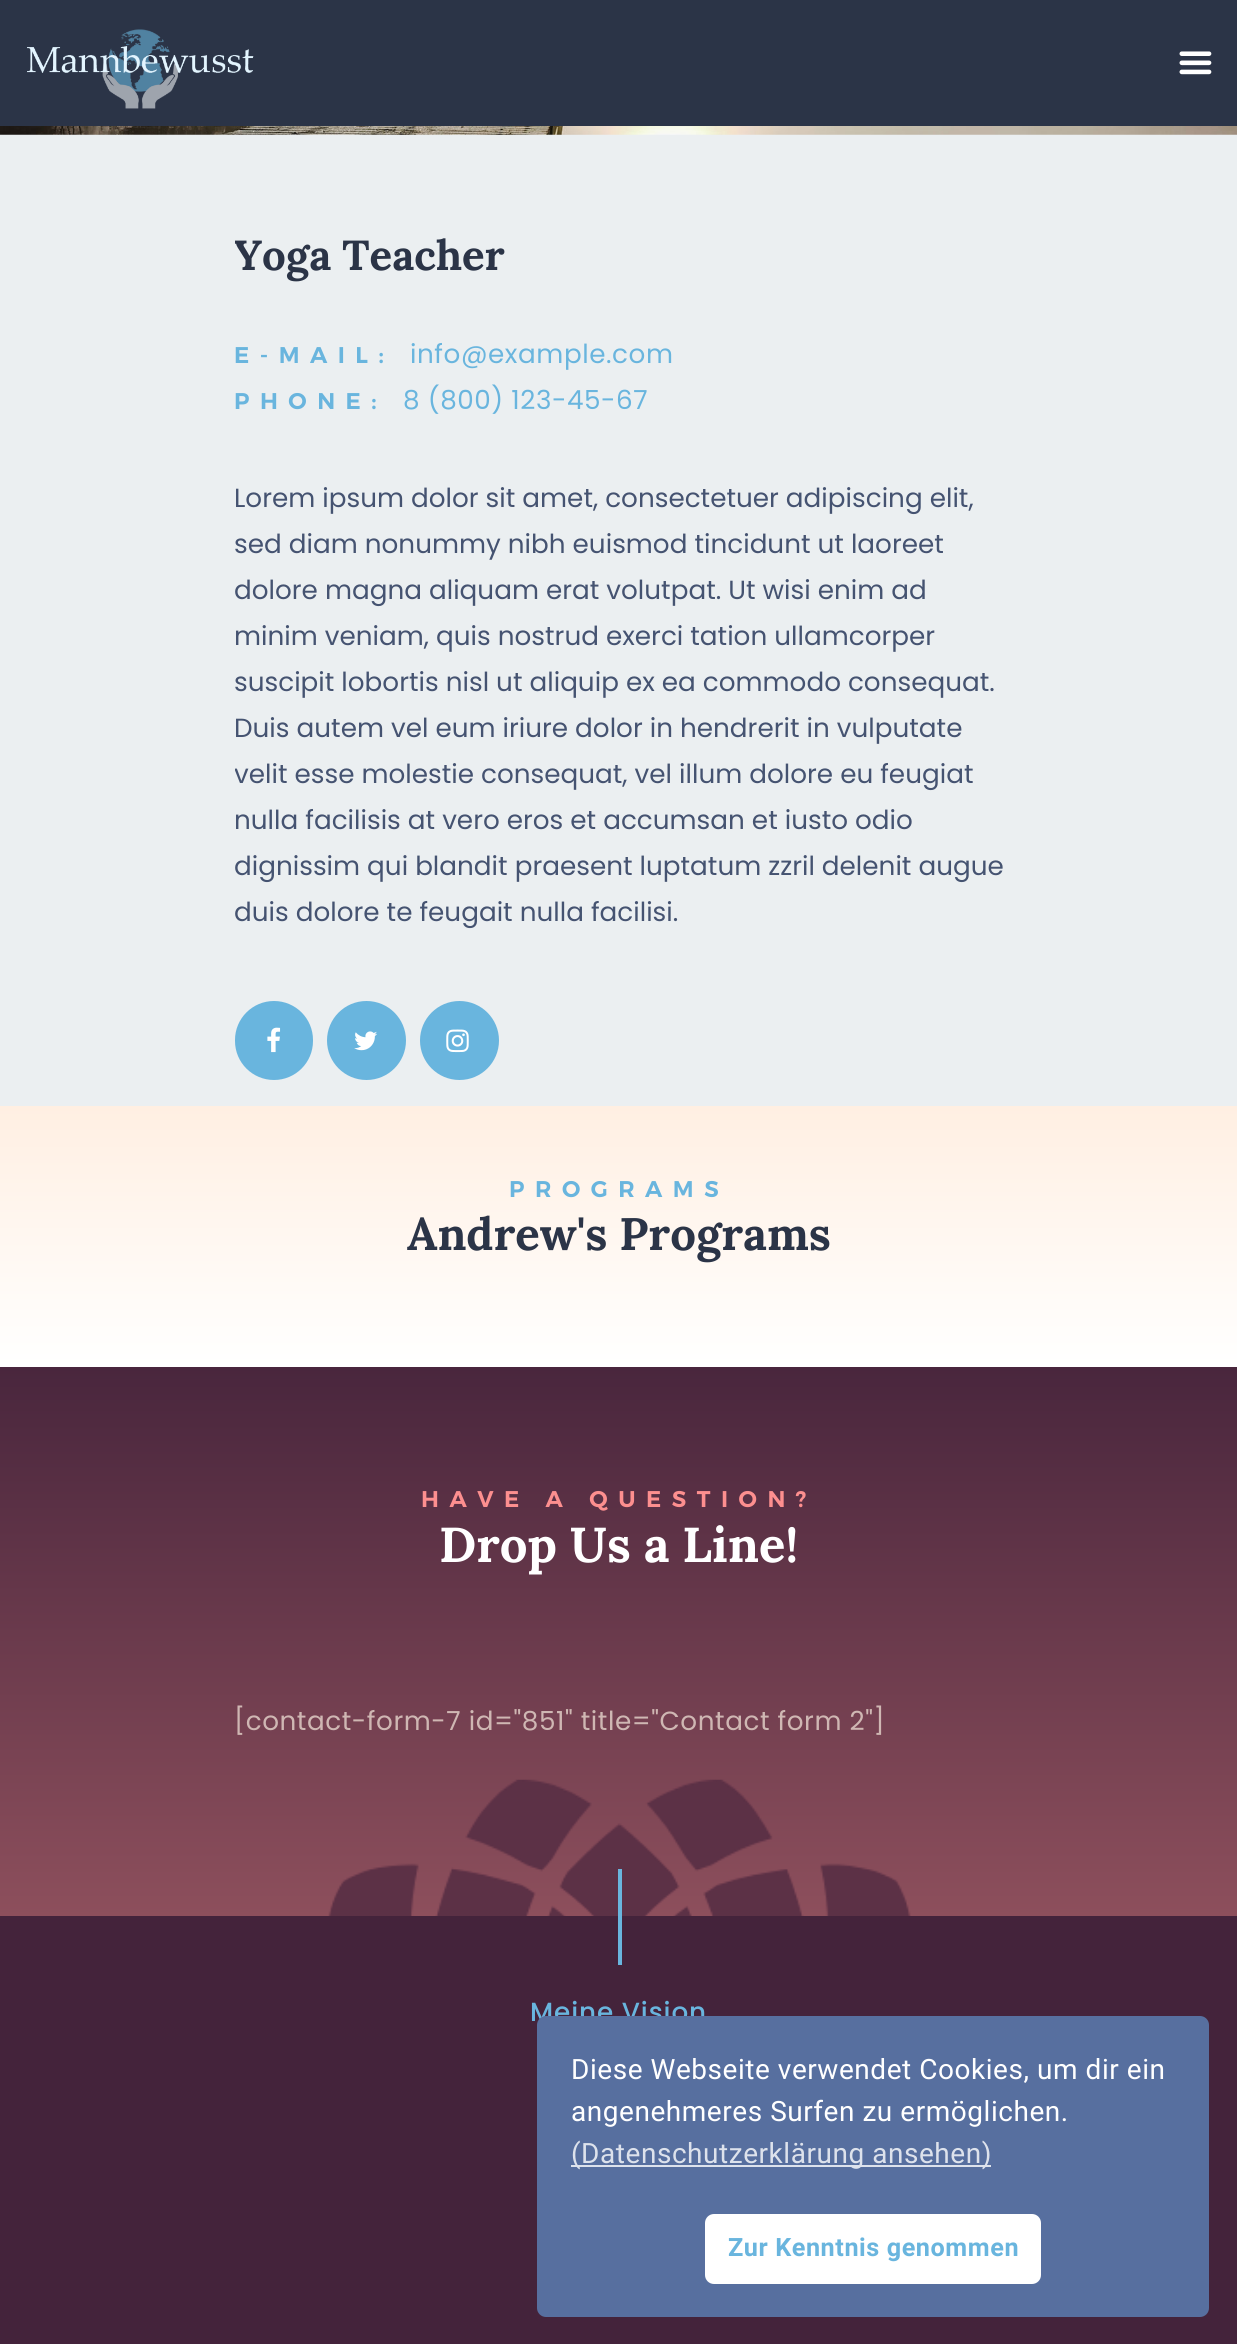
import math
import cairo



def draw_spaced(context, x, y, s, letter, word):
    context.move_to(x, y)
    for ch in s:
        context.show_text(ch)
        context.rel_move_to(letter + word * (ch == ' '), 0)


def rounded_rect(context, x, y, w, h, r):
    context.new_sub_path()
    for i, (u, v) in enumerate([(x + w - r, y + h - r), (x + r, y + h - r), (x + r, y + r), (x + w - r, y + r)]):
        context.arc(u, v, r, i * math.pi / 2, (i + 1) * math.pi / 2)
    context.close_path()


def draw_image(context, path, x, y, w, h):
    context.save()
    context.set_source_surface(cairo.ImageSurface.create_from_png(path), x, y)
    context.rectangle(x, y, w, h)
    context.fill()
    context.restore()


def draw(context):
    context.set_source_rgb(235 / 255, 239 / 255, 241 / 255)
    context.paint()
    context.set_source_rgb(43 / 255, 52 / 255, 71 / 255)
    context.rectangle(0, 0, 1237, 126)
    context.fill()
    draw_image(context, "images/1.png", 27, 29, 227, 80)
    draw_image(context, "images/2.png", 1179, 51, 33, 24)
    draw_image(context, "images/3.png", 0, 126, 1237, 9)
    context.set_source_rgb(105 / 255, 181 / 255, 222 / 255)
    rounded_rect(context, 235, 1001, 78, 79, 39)
    context.fill()
    draw_image(context, "images/4.png", 267, 1027, 14, 26)
    context.arc(366.5, 1040.5, 39.5, 0, 2 * math.pi)
    context.fill()
    draw_image(context, "images/5.png", 354, 1031, 23, 20)
    context.arc(459.5, 1040.5, 39.5, 0, 2 * math.pi)
    context.fill()
    draw_image(context, "images/6.png", 446, 1029, 23, 24)
    gradient = cairo.LinearGradient(619, 1106, 619, 1367)
    gradient.add_color_stop_rgba(0, 1, 239 / 255, 226 / 255, 1)
    gradient.add_color_stop_rgba(1, 1, 1, 1, 1)
    context.set_source(gradient)
    context.rectangle(0, 1106, 1237, 261)
    context.fill()
    gradient = cairo.LinearGradient(619, 1367, 619, 1916)
    gradient.add_color_stop_rgba(0, 73 / 255, 38 / 255, 61 / 255, 1)
    gradient.add_color_stop_rgba(1, 141 / 255, 79 / 255, 92 / 255, 1)
    context.set_source(gradient)
    context.rectangle(0, 1367, 1237, 549)
    context.fill()
    draw_image(context, "images/7.png", 328, 1779, 583, 137)
    context.set_source_rgb(68 / 255, 35 / 255, 59 / 255)
    context.rectangle(0, 1916, 1237, 428)
    context.fill()
    context.set_source_rgb(105 / 255, 181 / 255, 222 / 255)
    context.rectangle(618, 1869, 4, 96)
    context.fill()
    context.save()
    context.rectangle(235, 233, 770, 856)
    context.clip()
    context.select_font_face("Lora", cairo.FontSlant.NORMAL, cairo.FontWeight.BOLD)
    context.set_font_size(42)
    context.set_source_rgb(43 / 255, 52 / 255, 71 / 255)
    context.move_to(234, 270)
    context.show_text("Yoga Teacher")
    context.restore()
    context.select_font_face("Montserrat SemiBold")
    context.set_font_size(22.75)
    draw_spaced(context, 234, 363, "E-MAIL:", 10.5, 0)
    context.select_font_face("Poppins")
    context.set_font_size(26.25)
    draw_spaced(context, 410, 363, "info@example.com", 0.55, 0)
    context.select_font_face("Montserrat SemiBold")
    context.set_font_size(22.75)
    draw_spaced(context, 234, 409, "PHONE:", 10.5, 0)
    context.select_font_face("Poppins")
    context.set_font_size(26.25)
    draw_spaced(context, 403, 409, "8 (800) 123-45-67", 0.55, 0)
    context.set_source_rgb(69 / 255, 83 / 255, 113 / 255)
    context.move_to(234, 507)
    context.show_text("Lorem ipsum dolor sit amet, consectetuer adipiscing elit,")
    context.move_to(234, 553)
    context.show_text("sed diam nonummy nibh euismod tincidunt ut laoreet")
    context.save()
    context.rectangle(235, 233, 770, 856)
    context.clip()
    context.move_to(234, 599)
    context.show_text("dolore magna aliquam erat volutpat. Ut wisi enim ad")
    context.restore()
    context.move_to(234, 645)
    context.show_text("minim veniam, quis nostrud exerci tation ullamcorper")
    context.move_to(234, 691)
    context.show_text("suscipit lobortis nisl ut aliquip ex ea commodo consequat.")
    context.move_to(234, 737)
    context.show_text("Duis autem vel eum iriure dolor in hendrerit in vulputate")
    context.save()
    context.rectangle(235, 233, 770, 856)
    context.clip()
    context.move_to(234, 783)
    context.show_text("velit esse molestie consequat, vel illum dolore eu feugiat")
    context.restore()
    context.move_to(234, 829)
    context.show_text("nulla facilisis at vero eros et accumsan et iusto odio")
    context.save()
    context.rectangle(235, 233, 770, 856)
    context.clip()
    context.move_to(234, 875)
    context.show_text("dignissim qui blandit praesent luptatum zzril delenit augue")
    context.move_to(234, 921)
    context.show_text("duis dolore te feugait nulla facilisi.")
    context.restore()
    context.select_font_face("Montserrat SemiBold")
    context.set_font_size(22.75)
    context.set_source_rgb(105 / 255, 181 / 255, 222 / 255)
    draw_spaced(context, 509, 1197, "PROGRAMS", 10.5, 0)
    context.select_font_face("Lora", cairo.FontSlant.NORMAL, cairo.FontWeight.BOLD)
    context.set_font_size(45.5)
    context.set_source_rgb(43 / 255, 52 / 255, 71 / 255)
    context.move_to(407, 1250)
    context.show_text("Andrew's Programs")
    context.select_font_face("Montserrat SemiBold")
    context.set_font_size(22.75)
    context.set_source_rgb(253 / 255, 143 / 255, 143 / 255)
    draw_spaced(context, 421, 1507, "HAVE A QUESTION?", 10.5, 0)
    context.select_font_face("Lora", cairo.FontSlant.NORMAL, cairo.FontWeight.BOLD)
    context.set_font_size(49)
    context.set_source_rgb(1, 1, 1)
    context.move_to(439, 1562)
    context.show_text("Drop Us a Line!")
    context.select_font_face("Poppins")
    context.set_font_size(26.25)
    context.set_source_rgb(207 / 255, 183 / 255, 179 / 255)
    draw_spaced(context, 234, 1730, "[contact-form-7 id=\"851\" title=\"Contact form 2\"]", 0.55, 0)
    context.select_font_face("Poppins Medium")
    context.set_source_rgb(105 / 255, 181 / 255, 222 / 255)
    draw_spaced(context, 530, 2021, "Meine Vision", 0.9, 0)
    context.set_source_rgb(87 / 255, 111 / 255, 159 / 255)
    rounded_rect(context, 537, 2016, 672, 301, 9)
    context.fill()
    context.select_font_face("Roboto")
    context.set_font_size(28)
    context.set_source_rgb(1, 1, 1)
    draw_spaced(context, 571, 2079, "Diese Webseite verwendet Cookies, um dir ein", 0.55, 0)
    draw_spaced(context, 571, 2121, "angenehmeres Surfen zu ermöglichen.", 0.55, 0)
    context.set_source_rgb(221 / 255, 226 / 255, 236 / 255)
    context.rectangle(571, 2165, 420, 2)
    context.fill()
    draw_spaced(context, 571, 2163, "(Datenschutzerklärung ansehen)", 0.55, 0)
    context.set_source_rgb(1, 1, 1)
    rounded_rect(context, 705, 2214, 336, 70, 9)
    context.fill()
    context.select_font_face("Roboto", cairo.FontSlant.NORMAL, cairo.FontWeight.BOLD)
    context.set_font_size(25.25)
    context.set_source_rgb(105 / 255, 181 / 255, 222 / 255)
    draw_spaced(context, 728, 2256, "Zur Kenntnis genommen", 0.55, 0)


surface = cairo.ImageSurface(cairo.Format.RGB24, 1237, 2344)
context = cairo.Context(surface)
options = cairo.FontOptions()
options.set_hint_metrics(cairo.HintMetrics.OFF)
options.set_hint_style(cairo.HintStyle.NONE)
context.set_font_options(options)
context.set_miter_limit(4)
draw(context)
surface.write_to_png("out.png")
